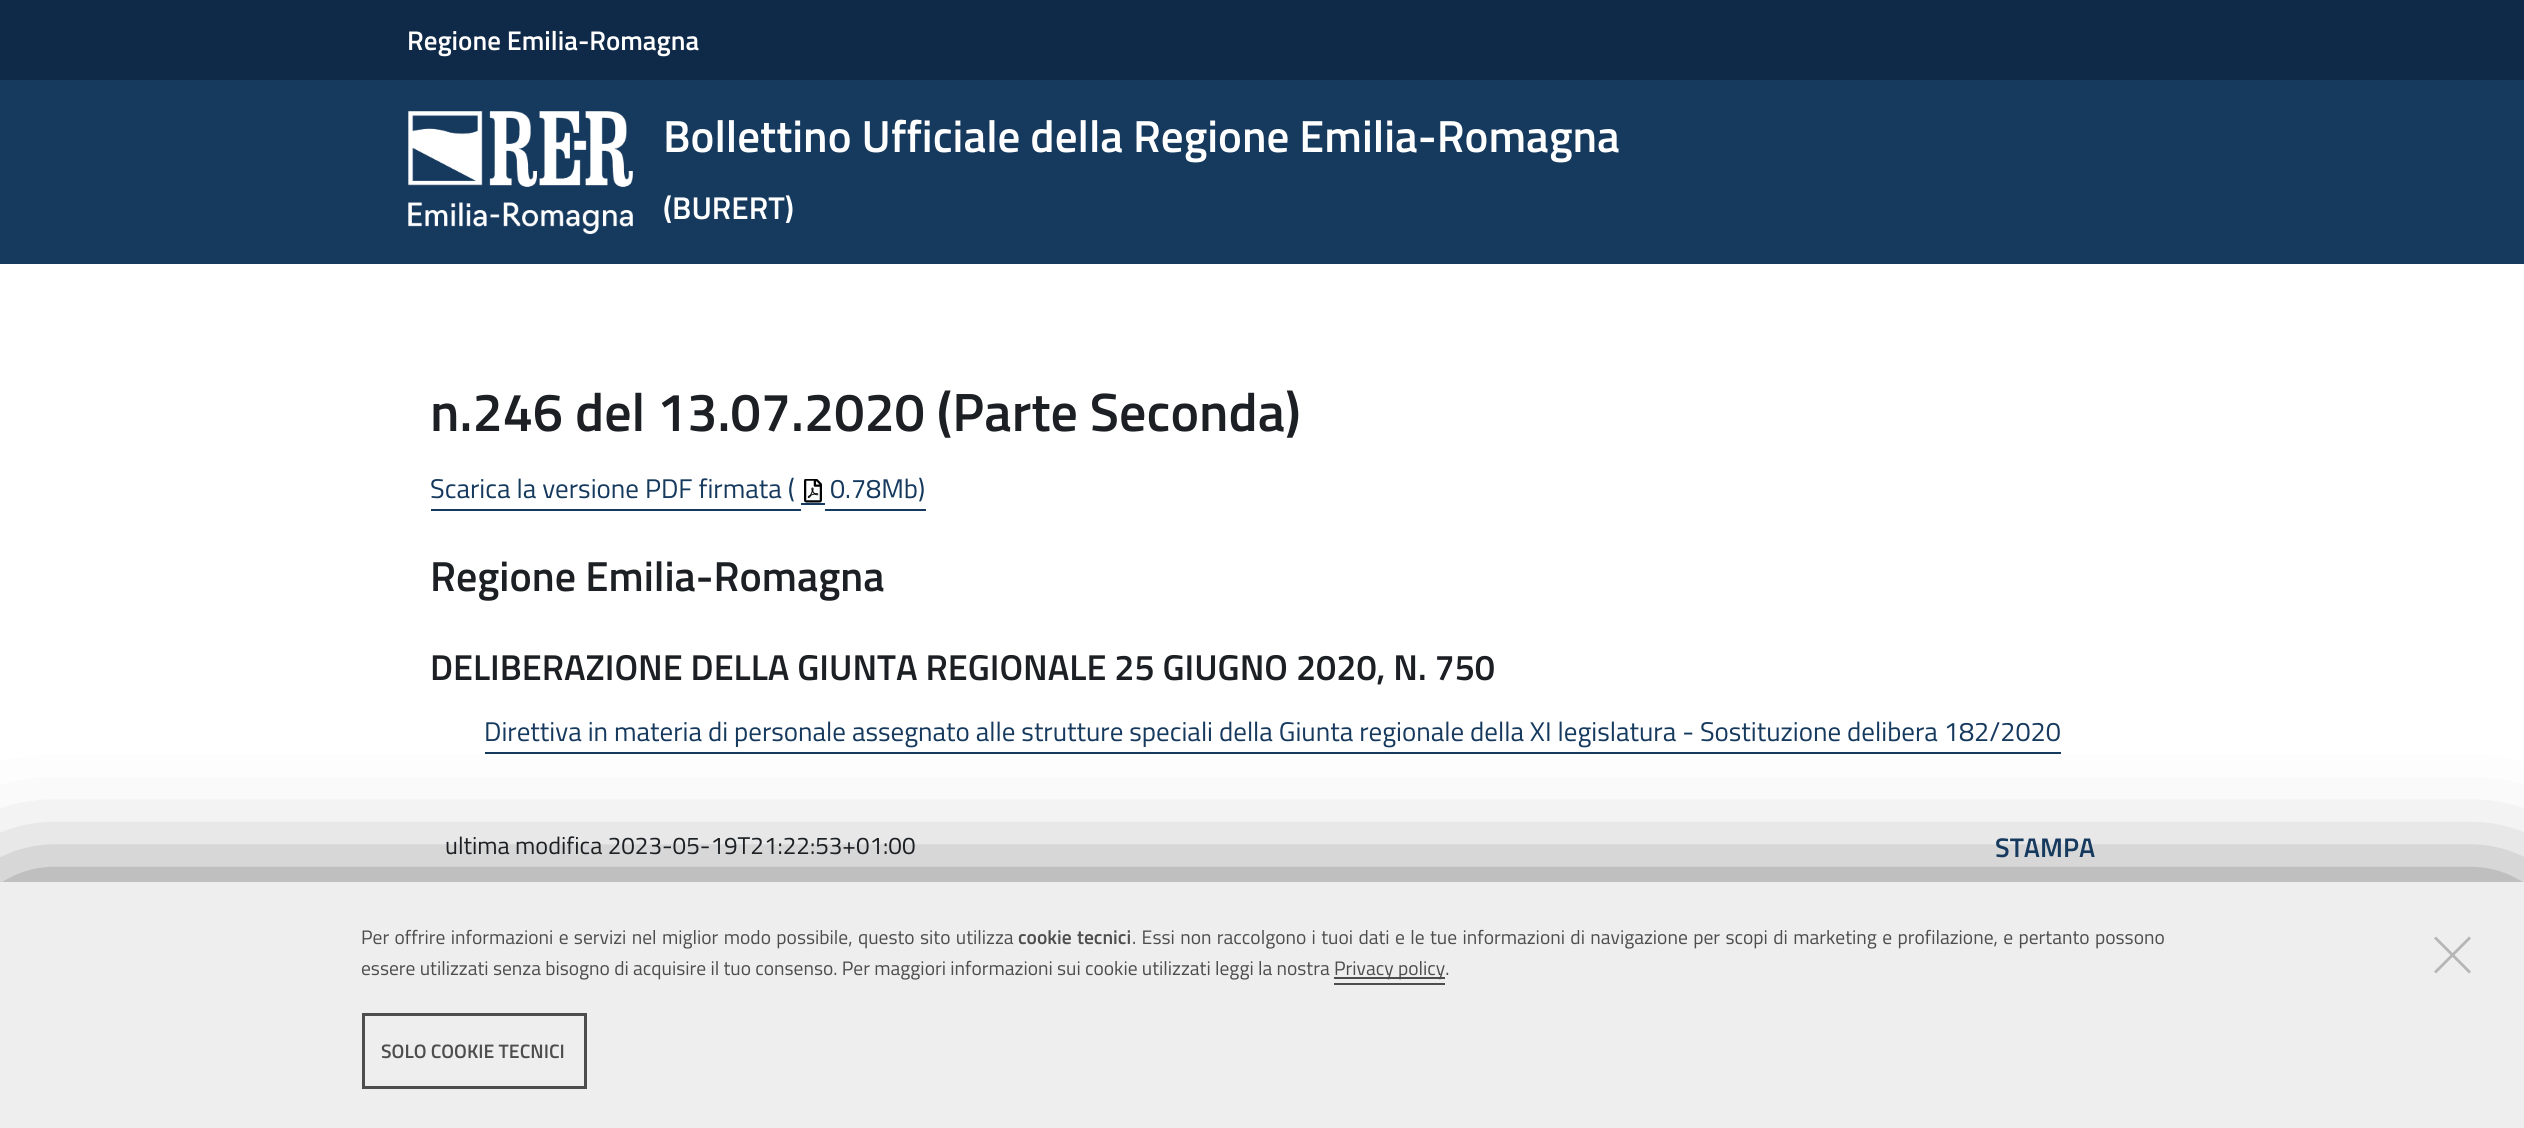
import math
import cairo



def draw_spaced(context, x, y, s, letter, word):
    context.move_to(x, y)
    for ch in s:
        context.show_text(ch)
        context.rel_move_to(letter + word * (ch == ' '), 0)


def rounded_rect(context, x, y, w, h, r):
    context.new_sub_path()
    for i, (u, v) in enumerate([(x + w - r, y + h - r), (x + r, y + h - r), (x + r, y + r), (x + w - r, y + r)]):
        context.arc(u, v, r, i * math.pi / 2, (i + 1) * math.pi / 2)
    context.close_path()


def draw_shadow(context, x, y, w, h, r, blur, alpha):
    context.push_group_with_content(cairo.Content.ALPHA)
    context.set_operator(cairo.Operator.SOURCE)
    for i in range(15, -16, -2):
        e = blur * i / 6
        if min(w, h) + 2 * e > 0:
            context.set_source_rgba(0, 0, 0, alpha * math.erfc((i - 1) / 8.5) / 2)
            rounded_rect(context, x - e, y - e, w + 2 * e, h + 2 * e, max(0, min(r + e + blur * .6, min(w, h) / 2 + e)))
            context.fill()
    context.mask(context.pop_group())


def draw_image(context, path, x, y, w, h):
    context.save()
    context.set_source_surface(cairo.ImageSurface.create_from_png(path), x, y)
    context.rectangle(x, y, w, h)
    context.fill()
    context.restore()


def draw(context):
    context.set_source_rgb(1, 1, 1)
    context.paint()
    context.set_source_rgb(22 / 255, 57 / 255, 94 / 255)
    context.rectangle(0, 80, 2524, 184)
    context.fill()
    context.set_source_rgb(15 / 255, 42 / 255, 72 / 255)
    context.rectangle(0, 0, 2524, 80)
    context.fill()
    draw_image(context, "images/1.png", 408, 111, 225, 123)
    context.set_source_rgb(22 / 255, 57 / 255, 94 / 255)
    context.rectangle(431, 509, 370, 2)
    context.fill()
    draw_image(context, "images/2.png", 804, 479, 18, 24)
    context.rectangle(801, 503, 24, 2)
    context.fill()
    context.rectangle(825, 509, 101, 2)
    context.fill()
    context.rectangle(485, 752, 1576, 2)
    context.fill()
    context.set_source_rgb(0, 0, 0)
    draw_shadow(context, 14, 923, 2497, 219, 0, 67.5, 1)
    context.set_source_rgb(238 / 255, 238 / 255, 238 / 255)
    context.rectangle(0, 882, 2524, 246)
    context.fill()
    context.set_source_rgb(77 / 255, 77 / 255, 77 / 255)
    context.rectangle(1334, 983, 111, 2)
    context.fill()
    context.rectangle(1334, 977, 111, 2)
    context.fill()
    context.set_source_rgb(182 / 255, 182 / 255, 182 / 255)
    context.new_path()
    context.move_to(2469, 936.5)
    context.line_to(2471, 938.5)
    context.line_to(2436, 973.5)
    context.line_to(2434, 971.5)
    context.close_path()
    context.fill()
    context.new_path()
    context.move_to(2434, 938.5)
    context.line_to(2436, 936.5)
    context.line_to(2471, 971.5)
    context.line_to(2469, 973.5)
    context.close_path()
    context.fill()
    context.rectangle(363.5, 1014.5, 222, 73)
    context.set_source_rgb(77 / 255, 77 / 255, 77 / 255)
    context.set_line_width(3)
    context.stroke()
    context.select_font_face("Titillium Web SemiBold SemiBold")
    context.set_font_size(27)
    context.set_source_rgb(1, 1, 1)
    context.move_to(407, 50)
    context.show_text("Regione Emilia-Romagna")
    context.set_font_size(45)
    context.move_to(663, 152)
    context.show_text("Bollettino Ufficiale della Regione Emilia-Romagna")
    context.set_font_size(31.5)
    context.move_to(663, 219)
    context.show_text("(BURERT)")
    context.set_font_size(54)
    context.set_source_rgb(28 / 255, 32 / 255, 36 / 255)
    context.move_to(430, 431)
    context.show_text("n.246 del 13.07.2020 (Parte Seconda)")
    context.select_font_face("Titillium Web")
    context.set_font_size(27)
    context.set_source_rgb(22 / 255, 57 / 255, 94 / 255)
    context.move_to(430, 498)
    context.show_text("Scarica la versione PDF firmata (")
    context.move_to(830, 498)
    context.show_text("0.78Mb)")
    context.select_font_face("Titillium Web SemiBold SemiBold")
    context.set_font_size(42)
    context.set_source_rgb(28 / 255, 32 / 255, 36 / 255)
    context.move_to(430, 591)
    context.show_text("Regione Emilia-Romagna")
    context.set_font_size(36)
    context.move_to(430, 680)
    context.show_text("DELIBERAZIONE DELLA GIUNTA REGIONALE 25 GIUGNO 2020, N. 750")
    context.select_font_face("Titillium Web")
    context.set_font_size(27)
    context.set_source_rgb(22 / 255, 57 / 255, 94 / 255)
    context.move_to(484, 741)
    context.show_text("Direttiva in materia di personale assegnato alle strutture speciali della Giunta regionale della XI legislatura - Sostituzione delibera 182/2020")
    context.set_font_size(24.25)
    context.set_source_rgb(28 / 255, 32 / 255, 36 / 255)
    context.move_to(445, 854)
    context.show_text("ultima modifica 2023-05-19T21:22:53+01:00")
    context.select_font_face("Titillium Web SemiBold SemiBold")
    context.set_font_size(27)
    context.set_source_rgb(22 / 255, 57 / 255, 94 / 255)
    context.move_to(1995, 857)
    context.show_text("STAMPA")
    context.select_font_face("Titillium Web")
    context.set_font_size(19.5)
    context.set_source_rgb(77 / 255, 77 / 255, 77 / 255)
    draw_spaced(context, 361, 944, "Per offrire informazioni e servizi nel miglior modo possibile, questo sito utilizza", 0, 1.1)
    context.select_font_face("Titillium Web SemiBold SemiBold")
    draw_spaced(context, 1018, 944, "cookie tecnici", 0, 1)
    context.select_font_face("Titillium Web")
    draw_spaced(context, 1132, 944, ". Essi non raccolgono i tuoi dati e le tue informazioni di navigazione per scopi di marketing e profilazione, e pertanto possono", 0, 1.1)
    context.move_to(361, 975)
    context.show_text("essere utilizzati senza bisogno di acquisire il tuo consenso. Per maggiori informazioni sui cookie utilizzati leggi la nostra")
    context.move_to(1334, 975)
    context.show_text("Privacy policy.")
    context.select_font_face("Titillium Web SemiBold SemiBold")
    context.move_to(381, 1058)
    context.show_text("SOLO COOKIE TECNICI")


surface = cairo.ImageSurface(cairo.Format.RGB24, 2524, 1128)
context = cairo.Context(surface)
options = cairo.FontOptions()
options.set_hint_metrics(cairo.HintMetrics.OFF)
options.set_hint_style(cairo.HintStyle.NONE)
context.set_font_options(options)
context.set_miter_limit(4)
draw(context)
surface.write_to_png("out.png")
